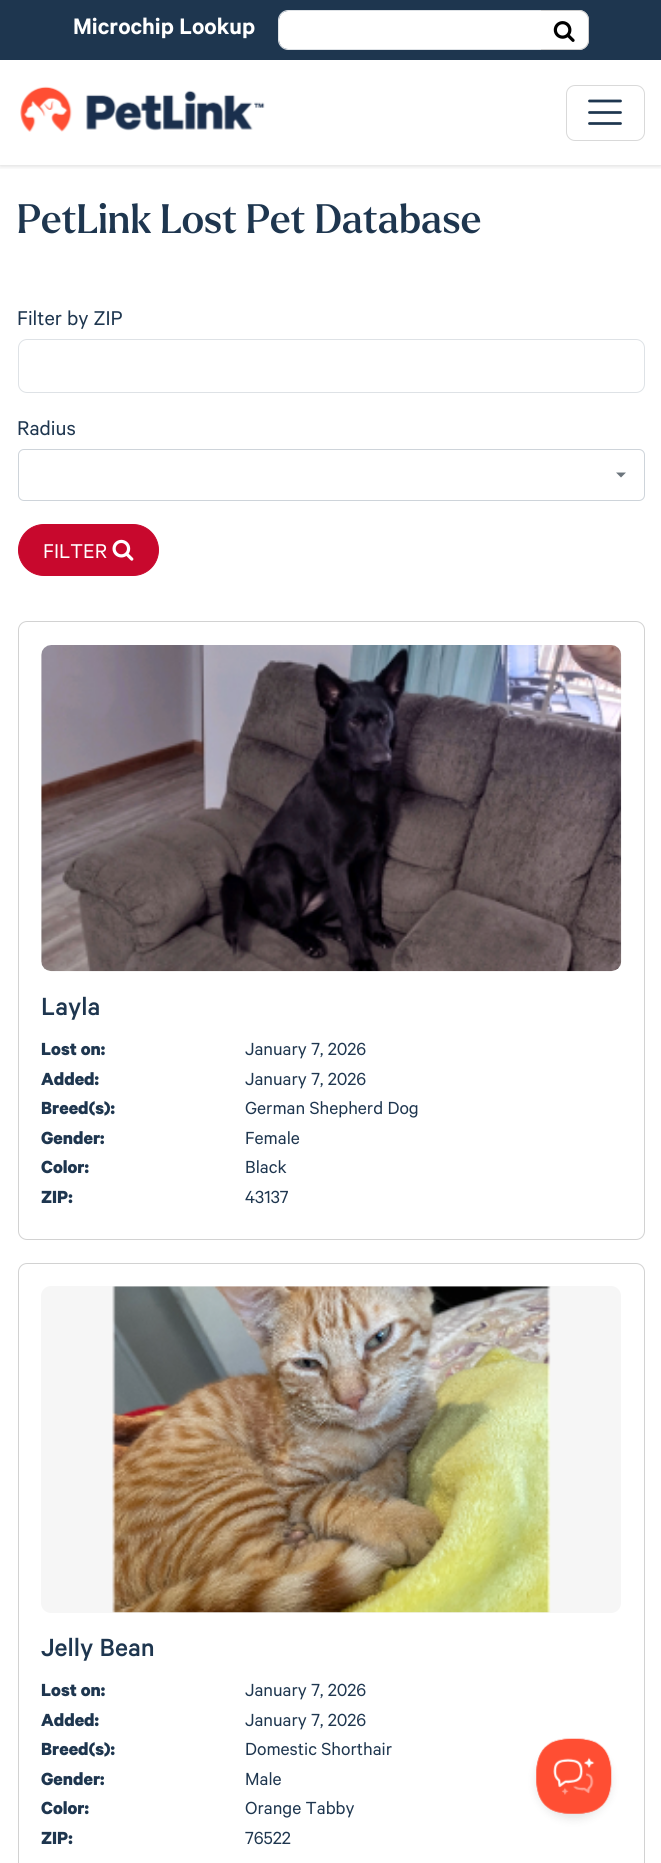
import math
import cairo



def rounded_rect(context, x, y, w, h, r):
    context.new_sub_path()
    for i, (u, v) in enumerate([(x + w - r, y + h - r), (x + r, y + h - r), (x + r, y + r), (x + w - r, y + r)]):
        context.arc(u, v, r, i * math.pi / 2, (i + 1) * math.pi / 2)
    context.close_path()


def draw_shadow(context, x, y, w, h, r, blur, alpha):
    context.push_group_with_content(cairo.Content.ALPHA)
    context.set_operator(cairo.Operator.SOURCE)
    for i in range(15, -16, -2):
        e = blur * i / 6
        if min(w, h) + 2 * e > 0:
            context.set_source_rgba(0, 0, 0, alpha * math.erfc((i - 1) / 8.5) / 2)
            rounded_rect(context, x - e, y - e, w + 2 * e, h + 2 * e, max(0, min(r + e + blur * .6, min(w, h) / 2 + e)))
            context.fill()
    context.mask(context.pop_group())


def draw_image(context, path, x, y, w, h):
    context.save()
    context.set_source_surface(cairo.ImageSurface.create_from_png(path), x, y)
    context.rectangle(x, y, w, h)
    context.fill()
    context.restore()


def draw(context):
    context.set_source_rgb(1, 1, 1)
    context.paint()
    context.save()
    context.rectangle(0, 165, 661, 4)
    context.clip()
    context.set_source_rgb(0, 0, 0)
    draw_shadow(context, 0, 0, 661, 165, 0, 3, 0.2)
    context.restore()
    context.set_source_rgb(30 / 255, 54 / 255, 79 / 255)
    context.rectangle(0, 0, 661, 60)
    context.fill()
    context.set_source_rgb(1, 1, 1)
    context.new_path()
    context.move_to(288, 11)
    context.line_to(546, 11)
    context.line_to(546, 49)
    context.line_to(288, 49)
    context.curve_to(283, 49, 279, 45, 279, 40)
    context.line_to(279, 20)
    context.curve_to(279, 15, 283, 11, 288, 11)
    context.close_path()
    context.fill()
    context.new_path()
    context.move_to(288, 10.5)
    context.line_to(547.5, 10.5)
    context.line_to(547.5, 49.5)
    context.line_to(288, 49.5)
    context.curve_to(283, 49.5, 278.5, 45, 278.5, 40)
    context.line_to(278.5, 20)
    context.curve_to(278.5, 15, 283, 10.5, 288, 10.5)
    context.close_path()
    context.set_source_rgb(222 / 255, 226 / 255, 230 / 255)
    context.set_line_width(1)
    context.stroke()
    context.set_source_rgb(1, 1, 1)
    context.new_path()
    context.move_to(541, 10)
    context.line_to(579, 10)
    context.curve_to(584.5, 10, 589, 14.5, 589, 20)
    context.line_to(589, 40)
    context.curve_to(589, 45.5, 584.5, 50, 579, 50)
    context.line_to(541, 50)
    context.close_path()
    context.fill()
    context.set_source_rgb(204 / 255, 204 / 255, 204 / 255)
    context.set_fill_rule(cairo.FillRule.EVEN_ODD)
    context.new_path()
    context.move_to(541, 10)
    context.line_to(579, 10)
    context.curve_to(584, 10, 589, 14, 589, 20)
    context.line_to(589, 40)
    context.curve_to(589, 46, 584, 50, 579, 50)
    context.line_to(541, 50)
    context.close_path()
    context.move_to(541, 11)
    context.line_to(579, 11)
    context.curve_to(584, 11, 588, 15, 588, 20)
    context.line_to(588, 40)
    context.curve_to(588, 45, 584, 49, 579, 49)
    context.line_to(541, 49)
    context.close_path()
    context.fill()
    draw_image(context, "images/1.png", 553, 21, 22, 21)
    draw_image(context, "images/2.png", 20, 86, 245, 46)
    rounded_rect(context, 566.5, 85.5, 78, 55, 8.5)
    context.set_source_rgb(217 / 255, 217 / 255, 217 / 255)
    context.stroke()
    context.new_path()
    context.move_to(589.5, 101)
    context.line_to(620.5, 101)
    context.move_to(589.5, 112.5)
    context.line_to(620.5, 112.5)
    context.move_to(589.5, 123.5)
    context.line_to(620.5, 123.5)
    context.set_source_rgb(30 / 255, 54 / 255, 79 / 255)
    context.set_line_width(2.8)
    context.set_line_cap(cairo.LineCap.ROUND)
    context.stroke()
    rounded_rect(context, 18.5, 339.5, 626, 53, 8.5)
    context.set_source_rgb(222 / 255, 226 / 255, 230 / 255)
    context.set_line_width(1)
    context.set_line_cap(cairo.LineCap.BUTT)
    context.stroke()
    rounded_rect(context, 18.5, 449.5, 626, 51, 5.5)
    context.set_source_rgb(206 / 255, 212 / 255, 218 / 255)
    context.stroke()
    context.set_source_rgb(108 / 255, 117 / 255, 125 / 255)
    context.set_fill_rule(cairo.FillRule.WINDING)
    context.new_path()
    context.move_to(616, 472.5)
    context.line_to(626, 472.5)
    context.line_to(621, 477.5)
    context.close_path()
    context.fill()
    context.set_source_rgb(200 / 255, 8 / 255, 45 / 255)
    rounded_rect(context, 18.5, 524.5, 140, 51, 25.5)
    context.fill_preserve()
    context.stroke()
    draw_image(context, "images/3.png", 112, 539, 22, 22)
    rounded_rect(context, 18.5, 621.5, 626, 618, 8.5)
    context.set_source_rgb(210 / 255, 210 / 255, 210 / 255)
    context.stroke()
    context.set_source_rgb(246 / 255, 246 / 255, 246 / 255)
    rounded_rect(context, 41, 645, 580, 326, 10)
    context.fill()
    draw_image(context, "images/4.png", 41, 645, 581, 327)
    rounded_rect(context, 18.5, 1263.5, 626, 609, 8.5)
    context.set_source_rgb(210 / 255, 210 / 255, 210 / 255)
    context.stroke()
    context.set_source_rgb(246 / 255, 246 / 255, 246 / 255)
    rounded_rect(context, 41, 1286, 580, 327, 10)
    context.fill()
    draw_image(context, "images/5.png", 112, 1286, 439, 327)
    context.set_source_rgb(0, 0, 0)
    draw_shadow(context, 536, 1744, 75, 75, 37.5, 4.5, 0.1)
    draw_image(context, "images/6.png", 536, 1738, 76, 76)
    context.select_font_face("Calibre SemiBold")
    context.set_font_size(25.25)
    context.set_source_rgb(1, 1, 1)
    context.move_to(73, 34)
    context.show_text("Microchip Lookup")
    context.select_font_face("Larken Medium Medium")
    context.set_font_size(40)
    context.set_source_rgb(30 / 255, 54 / 255, 79 / 255)
    context.move_to(17, 233)
    context.show_text("PetLink Lost Pet Database")
    context.select_font_face("Calibre")
    context.set_font_size(22.5)
    context.move_to(17, 325)
    context.show_text("Filter by ZIP")
    context.move_to(17, 435)
    context.show_text("Radius")
    context.set_source_rgb(1, 1, 1)
    context.move_to(43, 558)
    context.show_text("FILTER")
    context.select_font_face("Calibre Medium")
    context.set_font_size(28)
    context.set_source_rgb(30 / 255, 54 / 255, 79 / 255)
    context.move_to(41, 1015)
    context.show_text("Layla")
    context.select_font_face("Calibre", cairo.FontSlant.NORMAL, cairo.FontWeight.BOLD)
    context.set_font_size(19.75)
    context.move_to(41, 1055)
    context.show_text("Lost on:")
    context.select_font_face("Calibre")
    context.move_to(245, 1055)
    context.show_text("January 7, 2026")
    context.select_font_face("Calibre", cairo.FontSlant.NORMAL, cairo.FontWeight.BOLD)
    context.move_to(41, 1085)
    context.show_text("Added:")
    context.select_font_face("Calibre")
    context.move_to(245, 1085)
    context.show_text("January 7, 2026")
    context.select_font_face("Calibre", cairo.FontSlant.NORMAL, cairo.FontWeight.BOLD)
    context.move_to(41, 1114)
    context.show_text("Breed(s):")
    context.select_font_face("Calibre")
    context.move_to(245, 1114)
    context.show_text("German Shepherd Dog")
    context.select_font_face("Calibre", cairo.FontSlant.NORMAL, cairo.FontWeight.BOLD)
    context.move_to(41, 1144)
    context.show_text("Gender:")
    context.select_font_face("Calibre")
    context.move_to(245, 1144)
    context.show_text("Female")
    context.select_font_face("Calibre", cairo.FontSlant.NORMAL, cairo.FontWeight.BOLD)
    context.move_to(41, 1173)
    context.show_text("Color:")
    context.select_font_face("Calibre")
    context.move_to(245, 1173)
    context.show_text("Black")
    context.select_font_face("Calibre", cairo.FontSlant.NORMAL, cairo.FontWeight.BOLD)
    context.move_to(41, 1203)
    context.show_text("ZIP:")
    context.select_font_face("Calibre")
    context.move_to(245, 1203)
    context.show_text("43137")
    context.select_font_face("Calibre Medium")
    context.set_font_size(28)
    context.move_to(41, 1656)
    context.show_text("Jelly Bean")
    context.select_font_face("Calibre", cairo.FontSlant.NORMAL, cairo.FontWeight.BOLD)
    context.set_font_size(19.75)
    context.move_to(41, 1696)
    context.show_text("Lost on:")
    context.select_font_face("Calibre")
    context.move_to(245, 1696)
    context.show_text("January 7, 2026")
    context.select_font_face("Calibre", cairo.FontSlant.NORMAL, cairo.FontWeight.BOLD)
    context.move_to(41, 1726)
    context.show_text("Added:")
    context.select_font_face("Calibre")
    context.move_to(245, 1726)
    context.show_text("January 7, 2026")
    context.select_font_face("Calibre", cairo.FontSlant.NORMAL, cairo.FontWeight.BOLD)
    context.move_to(41, 1755)
    context.show_text("Breed(s):")
    context.select_font_face("Calibre")
    context.move_to(245, 1755)
    context.show_text("Domestic Shorthair")
    context.select_font_face("Calibre", cairo.FontSlant.NORMAL, cairo.FontWeight.BOLD)
    context.move_to(41, 1785)
    context.show_text("Gender:")
    context.select_font_face("Calibre")
    context.move_to(245, 1785)
    context.show_text("Male")
    context.select_font_face("Calibre", cairo.FontSlant.NORMAL, cairo.FontWeight.BOLD)
    context.move_to(41, 1814)
    context.show_text("Color:")
    context.select_font_face("Calibre")
    context.move_to(245, 1814)
    context.show_text("Orange Tabby")
    context.select_font_face("Calibre", cairo.FontSlant.NORMAL, cairo.FontWeight.BOLD)
    context.move_to(41, 1844)
    context.show_text("ZIP:")
    context.select_font_face("Calibre")
    context.move_to(245, 1844)
    context.show_text("76522")


surface = cairo.ImageSurface(cairo.Format.RGB24, 661, 1863)
context = cairo.Context(surface)
options = cairo.FontOptions()
options.set_hint_metrics(cairo.HintMetrics.OFF)
options.set_hint_style(cairo.HintStyle.NONE)
context.set_font_options(options)
context.set_miter_limit(4)
draw(context)
surface.write_to_png("out.png")
